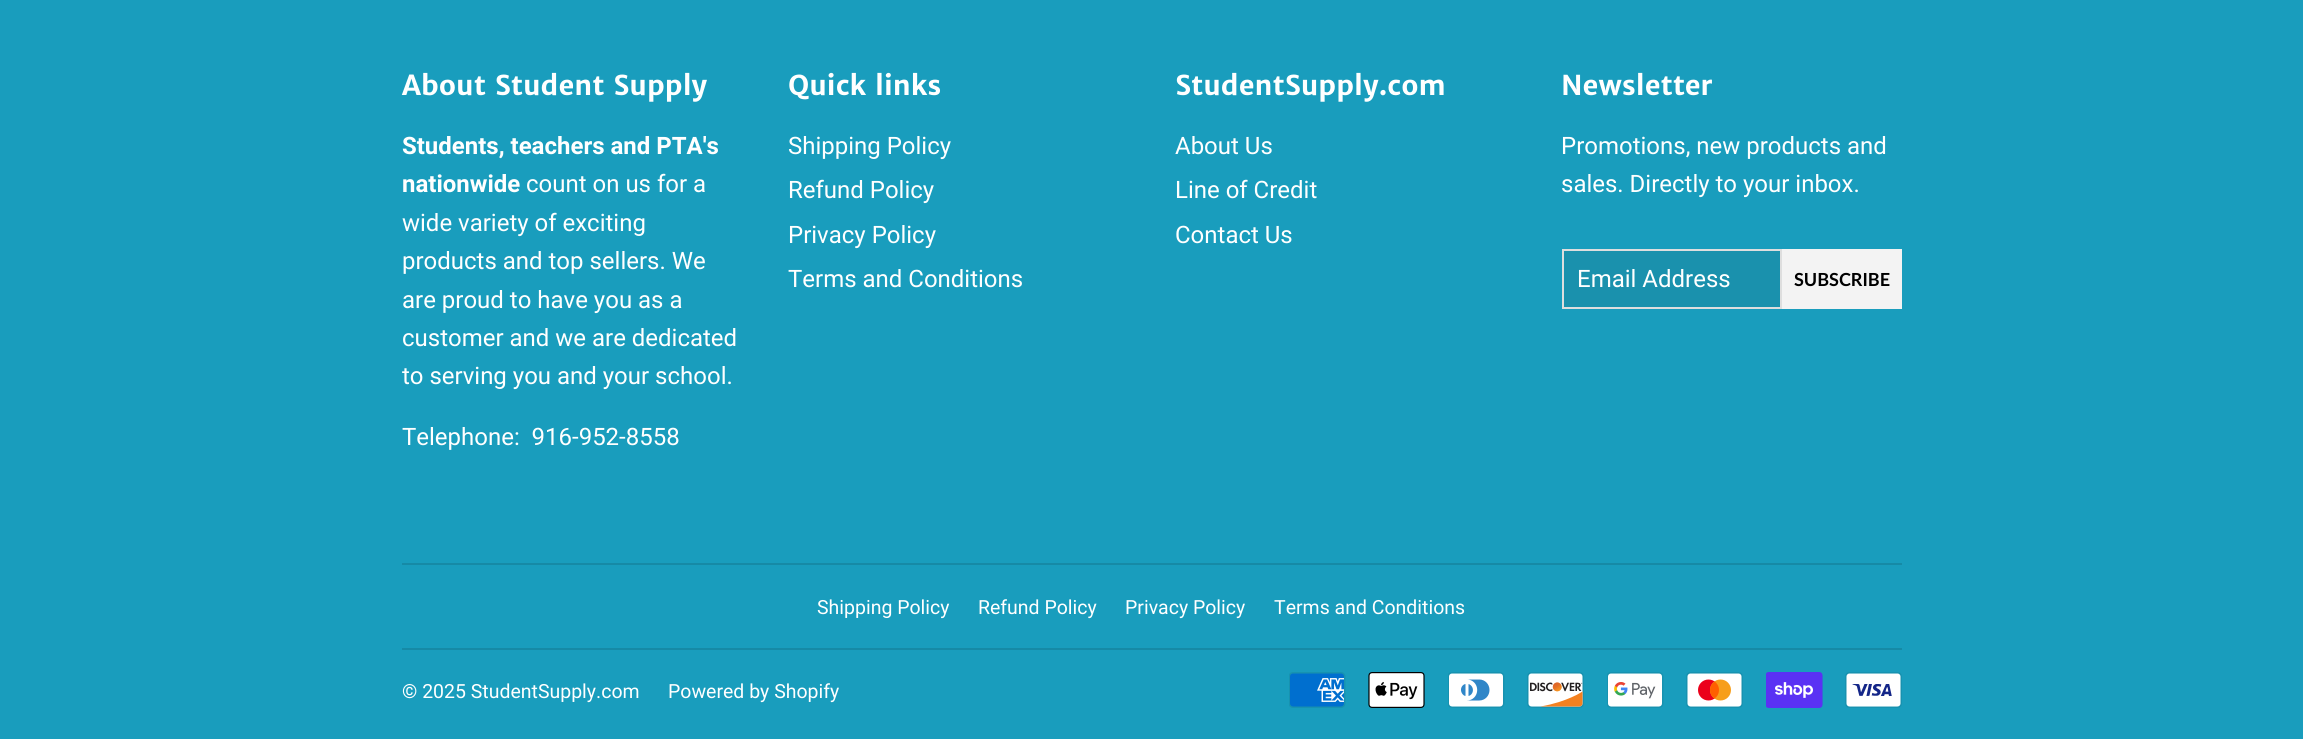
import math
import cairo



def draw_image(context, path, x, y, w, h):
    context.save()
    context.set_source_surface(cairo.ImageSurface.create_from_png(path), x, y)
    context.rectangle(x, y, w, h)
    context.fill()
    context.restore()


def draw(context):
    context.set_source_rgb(25 / 255, 157 / 255, 189 / 255)
    context.paint()
    context.set_source_rgb(26 / 255, 145 / 255, 173 / 255)
    context.rectangle(1563, 250, 218, 58)
    context.fill_preserve()
    context.set_source_rgb(222 / 255, 222 / 255, 222 / 255)
    context.stroke()
    context.set_source_rgb(243 / 255, 243 / 255, 243 / 255)
    context.rectangle(1782, 249, 120, 60)
    context.fill()
    context.set_source_rgb(22 / 255, 138 / 255, 166 / 255)
    context.rectangle(402, 563, 1500, 2)
    context.fill()
    context.rectangle(402, 648, 1500, 2)
    context.fill()
    draw_image(context, "images/1.png", 1289, 672, 57, 36)
    draw_image(context, "images/2.png", 1368, 672, 57, 36)
    draw_image(context, "images/3.png", 1448, 672, 57, 36)
    draw_image(context, "images/4.png", 1527, 672, 57, 36)
    draw_image(context, "images/5.png", 1607, 672, 57, 36)
    draw_image(context, "images/6.png", 1686, 672, 57, 36)
    draw_image(context, "images/7.png", 1766, 672, 57, 36)
    draw_image(context, "images/8.png", 1845, 672, 57, 36)
    context.select_font_face("Merriweather Sans", cairo.FontSlant.NORMAL, cairo.FontWeight.BOLD)
    context.set_font_size(27.25)
    context.set_source_rgb(1, 1, 1)
    context.move_to(402, 95)
    context.show_text("About Student Supply")
    context.select_font_face("Roboto", cairo.FontSlant.NORMAL, cairo.FontWeight.BOLD)
    context.set_font_size(24)
    context.move_to(402, 154)
    context.show_text("Students, teachers and PTA's")
    context.move_to(402, 192)
    context.show_text("nationwide")
    context.select_font_face("Roboto")
    context.move_to(526, 192)
    context.show_text("count on us for a")
    context.move_to(402, 231)
    context.show_text("wide variety of exciting")
    context.move_to(402, 269)
    context.show_text("products and top sellers. We")
    context.move_to(402, 308)
    context.show_text("are proud to have you as a")
    context.move_to(402, 346)
    context.show_text("customer and we are dedicated")
    context.move_to(402, 384)
    context.show_text("to serving you and your school.")
    context.move_to(402, 445)
    context.show_text("Telephone:  916-952-8558")
    context.select_font_face("Merriweather Sans", cairo.FontSlant.NORMAL, cairo.FontWeight.BOLD)
    context.set_font_size(27.25)
    context.move_to(788, 95)
    context.show_text("Quick links")
    context.select_font_face("Roboto")
    context.set_font_size(24)
    context.move_to(788, 154)
    context.show_text("Shipping Policy")
    context.move_to(788, 198)
    context.show_text("Refund Policy")
    context.move_to(788, 243)
    context.show_text("Privacy Policy")
    context.move_to(788, 287)
    context.show_text("Terms and Conditions")
    context.select_font_face("Merriweather Sans", cairo.FontSlant.NORMAL, cairo.FontWeight.BOLD)
    context.set_font_size(27.25)
    context.move_to(1175, 95)
    context.show_text("StudentSupply.com")
    context.select_font_face("Roboto")
    context.set_font_size(24)
    context.move_to(1175, 154)
    context.show_text("About Us")
    context.move_to(1175, 198)
    context.show_text("Line of Credit")
    context.move_to(1175, 243)
    context.show_text("Contact Us")
    context.select_font_face("Merriweather Sans", cairo.FontSlant.NORMAL, cairo.FontWeight.BOLD)
    context.set_font_size(27.25)
    context.move_to(1561, 95)
    context.show_text("Newsletter")
    context.select_font_face("Roboto")
    context.set_font_size(24)
    context.move_to(1561, 154)
    context.show_text("Promotions, new products and")
    context.move_to(1561, 192)
    context.show_text("sales. Directly to your inbox.")
    context.move_to(1577, 287)
    context.show_text("Email Address")
    context.select_font_face("Lato", cairo.FontSlant.NORMAL, cairo.FontWeight.BOLD)
    context.set_font_size(18)
    context.set_source_rgb(0, 0, 0)
    context.move_to(1794, 286)
    context.show_text("SUBSCRIBE")
    context.select_font_face("Roboto")
    context.set_font_size(19.5)
    context.set_source_rgb(1, 1, 1)
    context.move_to(817, 614)
    context.show_text("Shipping Policy")
    context.move_to(978, 614)
    context.show_text("Refund Policy")
    context.move_to(1125, 614)
    context.show_text("Privacy Policy")
    context.move_to(1274, 614)
    context.show_text("Terms and Conditions")
    context.move_to(402, 698)
    context.show_text("© 2025 StudentSupply.com")
    context.move_to(668, 698)
    context.show_text("Powered by Shopify")


surface = cairo.ImageSurface(cairo.Format.RGB24, 2303, 739)
context = cairo.Context(surface)
options = cairo.FontOptions()
options.set_hint_metrics(cairo.HintMetrics.OFF)
options.set_hint_style(cairo.HintStyle.NONE)
context.set_font_options(options)
context.set_miter_limit(4)
draw(context)
surface.write_to_png("out.png")
